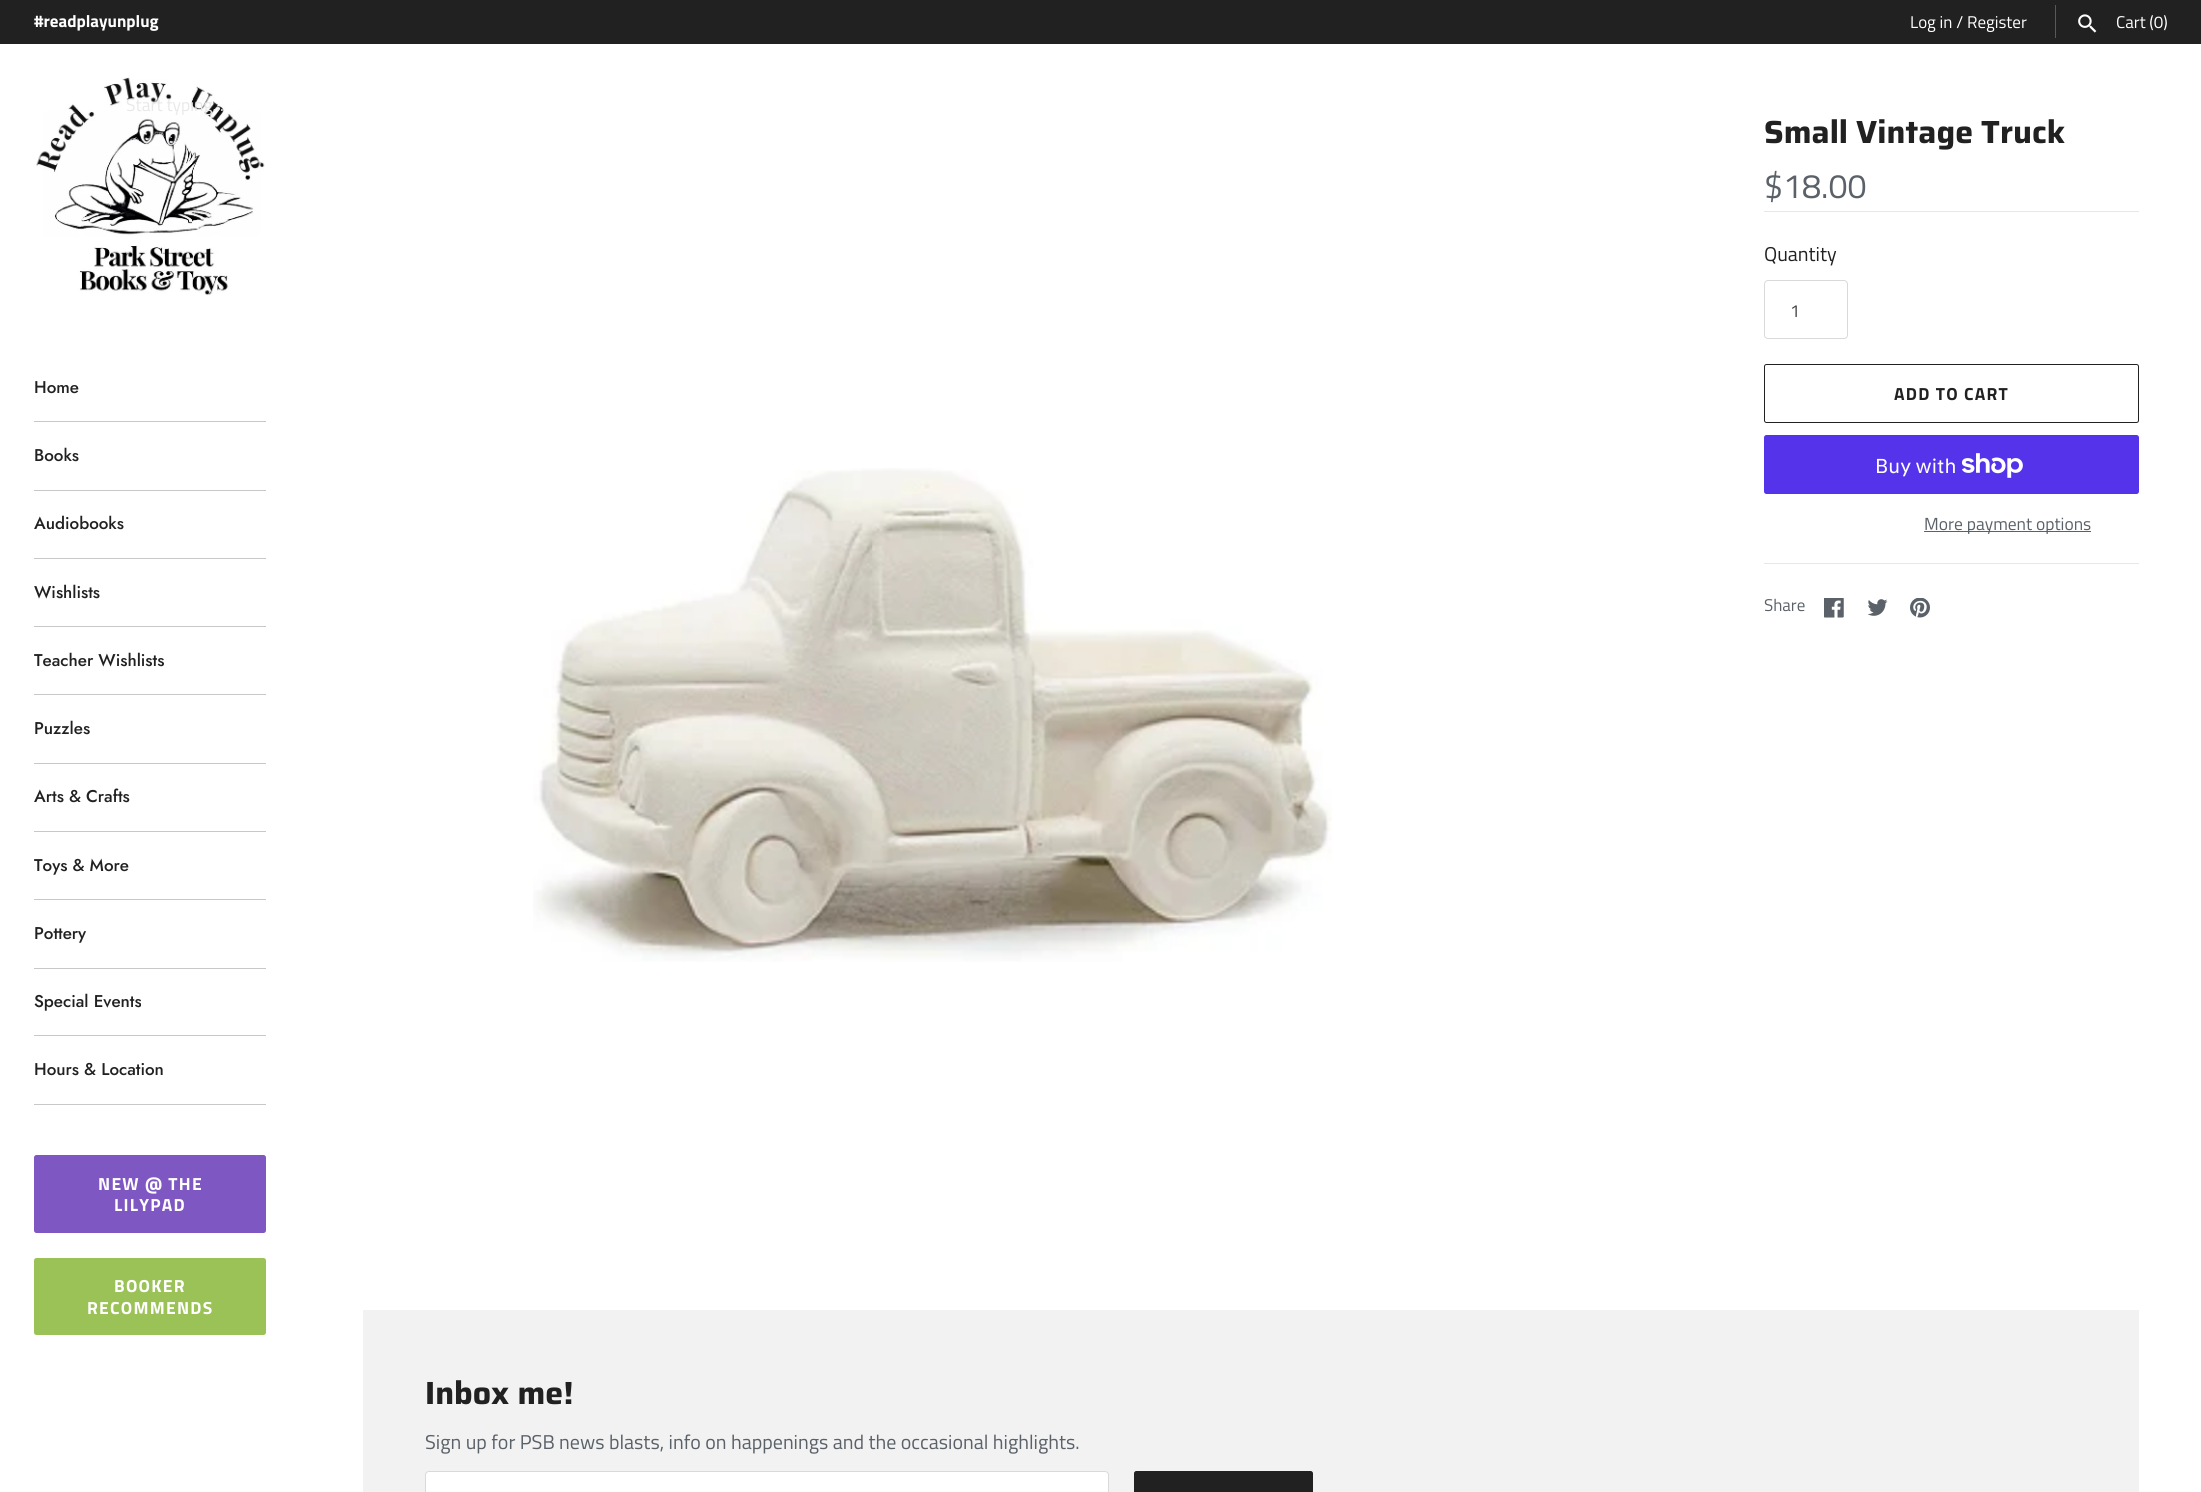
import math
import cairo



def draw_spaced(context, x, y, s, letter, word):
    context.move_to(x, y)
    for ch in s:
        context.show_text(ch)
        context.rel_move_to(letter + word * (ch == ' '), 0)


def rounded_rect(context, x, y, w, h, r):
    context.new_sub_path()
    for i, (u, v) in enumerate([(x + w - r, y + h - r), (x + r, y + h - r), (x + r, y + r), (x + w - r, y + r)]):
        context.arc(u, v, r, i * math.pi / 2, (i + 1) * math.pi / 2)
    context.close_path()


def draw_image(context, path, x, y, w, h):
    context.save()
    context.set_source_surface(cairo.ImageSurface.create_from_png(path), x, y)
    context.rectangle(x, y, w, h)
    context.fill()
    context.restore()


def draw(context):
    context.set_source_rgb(1, 1, 1)
    context.paint()
    context.set_source_rgb(33 / 255, 33 / 255, 33 / 255)
    context.rectangle(0, 0, 2201, 44)
    context.fill()
    context.set_source_rgb(89 / 255, 89 / 255, 89 / 255)
    context.rectangle(2055, 5, 1, 33)
    context.fill()
    draw_image(context, "images/1.png", 2078, 14, 19, 19)
    draw_image(context, "images/2.png", 36, 77, 229, 219)
    context.set_source_rgb(200 / 255, 200 / 255, 200 / 255)
    context.rectangle(34, 421, 232, 1)
    context.fill()
    context.rectangle(34, 490, 232, 1)
    context.fill()
    context.rectangle(34, 558, 232, 1)
    context.fill()
    context.rectangle(34, 626, 232, 1)
    context.fill()
    context.rectangle(34, 694, 232, 1)
    context.fill()
    context.rectangle(34, 763, 232, 1)
    context.fill()
    context.rectangle(34, 831, 232, 1)
    context.fill()
    context.rectangle(34, 899, 232, 1)
    context.fill()
    context.rectangle(34, 968, 232, 1)
    context.fill()
    context.rectangle(34, 1035, 232, 1)
    context.fill()
    context.rectangle(34, 1104, 232, 1)
    context.fill()
    context.set_source_rgb(126 / 255, 87 / 255, 194 / 255)
    rounded_rect(context, 34, 1155, 232, 78, 2.5)
    context.fill()
    context.set_source_rgb(155 / 255, 194 / 255, 87 / 255)
    rounded_rect(context, 34, 1258, 232, 77, 2.5)
    context.fill()
    context.set_source_rgb(231 / 255, 231 / 255, 231 / 255)
    context.rectangle(1764, 211, 375, 1)
    context.fill()
    rounded_rect(context, 1764.5, 280.5, 83, 58, 3.5)
    context.set_source_rgb(217 / 255, 217 / 255, 217 / 255)
    context.set_line_width(1)
    context.stroke()
    rounded_rect(context, 1764.5, 364.5, 374, 58, 2)
    context.set_source_rgb(33 / 255, 33 / 255, 33 / 255)
    context.stroke()
    context.set_source_rgb(84 / 255, 51 / 255, 235 / 255)
    rounded_rect(context, 1764, 435, 375, 59, 2.5)
    context.fill()
    draw_image(context, "images/3.png", 1961, 453, 62, 25)
    context.set_source_rgb(91 / 255, 97 / 255, 105 / 255)
    context.rectangle(1924, 531, 167, 1)
    context.fill()
    context.set_source_rgb(231 / 255, 231 / 255, 231 / 255)
    context.rectangle(1764, 563, 375, 1)
    context.fill()
    draw_image(context, "images/4.png", 1824, 598, 20, 20)
    draw_image(context, "images/5.png", 1868, 599, 20, 17)
    draw_image(context, "images/6.png", 1910, 598, 20, 20)
    draw_image(context, "images/7.png", 533, 468, 799, 494)
    context.set_source_rgb(242 / 255, 242 / 255, 242 / 255)
    context.rectangle(363, 1310, 1776, 182)
    context.fill()
    context.set_source_rgb(1, 1, 1)
    rounded_rect(context, 425, 1471, 684, 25, 4)
    context.fill()
    rounded_rect(context, 425.5, 1471.5, 683, 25, 3.5)
    context.set_source_rgba(0, 0, 0, 0.15)
    context.stroke()
    context.set_source_rgb(33 / 255, 33 / 255, 33 / 255)
    rounded_rect(context, 1134.5, 1471.5, 178, 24, 2)
    context.fill_preserve()
    context.stroke()
    context.select_font_face("Titillium Web", cairo.FontSlant.NORMAL, cairo.FontWeight.BOLD)
    context.set_font_size(17)
    context.set_source_rgb(1, 1, 1)
    context.move_to(34, 27)
    context.show_text("#readplayunplug")
    context.select_font_face("Titillium Web")
    context.move_to(1910, 28)
    context.show_text("Log in / Register")
    context.move_to(2116, 28)
    context.show_text("Cart (0)")
    context.set_font_size(17.5)
    context.set_source_rgb(232 / 255, 232 / 255, 232 / 255)
    context.move_to(126, 111)
    context.show_text("Start typing...")
    context.select_font_face("Jost Medium")
    context.set_font_size(17)
    context.set_source_rgb(33 / 255, 33 / 255, 33 / 255)
    context.move_to(34, 393)
    context.show_text("Home")
    context.move_to(34, 461)
    context.show_text("Books")
    context.move_to(34, 529)
    context.show_text("Audiobooks")
    context.move_to(34, 598)
    context.show_text("Wishlists")
    context.move_to(34, 666)
    context.show_text("Teacher Wishlists")
    context.move_to(34, 734)
    context.show_text("Puzzles")
    context.move_to(34, 802)
    context.show_text("Arts & Crafts")
    context.move_to(34, 871)
    context.show_text("Toys & More")
    context.move_to(34, 939)
    context.show_text("Pottery")
    context.move_to(34, 1007)
    context.show_text("Special Events")
    context.move_to(34, 1075)
    context.show_text("Hours & Location")
    context.select_font_face("Titillium Web", cairo.FontSlant.NORMAL, cairo.FontWeight.BOLD)
    context.set_font_size(17.5)
    context.set_source_rgb(1, 1, 1)
    draw_spaced(context, 98, 1190, "NEW @ THE", 1.25, 0)
    draw_spaced(context, 114, 1211, "LILYPAD", 1.25, 0)
    draw_spaced(context, 114, 1292, "BOOKER", 1.25, 0)
    draw_spaced(context, 87, 1314, "RECOMMENDS", 1.25, 0)
    context.select_font_face("Saira", cairo.FontSlant.NORMAL, cairo.FontWeight.BOLD)
    context.set_font_size(32)
    context.set_source_rgb(33 / 255, 33 / 255, 33 / 255)
    context.move_to(1764, 143)
    context.show_text("Small Vintage Truck")
    context.select_font_face("Titillium Web")
    context.set_font_size(34)
    context.set_source_rgb(91 / 255, 97 / 255, 105 / 255)
    context.move_to(1764, 198)
    context.show_text("$18.00")
    context.set_font_size(20)
    context.set_source_rgb(33 / 255, 33 / 255, 33 / 255)
    context.move_to(1764, 261)
    context.show_text("Quantity")
    context.set_font_size(17.5)
    context.set_source_rgb(68 / 255, 68 / 255, 68 / 255)
    context.move_to(1790, 317)
    context.show_text("1")
    context.select_font_face("Titillium Web", cairo.FontSlant.NORMAL, cairo.FontWeight.BOLD)
    context.set_source_rgb(33 / 255, 33 / 255, 33 / 255)
    draw_spaced(context, 1894, 400, "ADD TO CART", 1.25, 0)
    context.select_font_face("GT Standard")
    context.set_font_size(20)
    context.set_source_rgb(1, 1, 1)
    context.move_to(1875, 473)
    context.show_text("Buy with")
    context.select_font_face("Titillium Web")
    context.set_font_size(17.5)
    context.set_source_rgb(91 / 255, 97 / 255, 105 / 255)
    context.move_to(1924, 530)
    context.show_text("More payment options")
    context.set_font_size(17)
    context.move_to(1764, 611)
    context.show_text("Share")
    context.select_font_face("Saira", cairo.FontSlant.NORMAL, cairo.FontWeight.BOLD)
    context.set_font_size(32)
    context.set_source_rgb(33 / 255, 33 / 255, 33 / 255)
    context.move_to(425, 1404)
    context.show_text("Inbox me!")
    context.select_font_face("Titillium Web")
    context.set_font_size(20)
    context.set_source_rgb(91 / 255, 97 / 255, 105 / 255)
    context.move_to(425, 1449)
    context.show_text("Sign up for PSB news blasts, info on happenings and the occasional highlights.")


surface = cairo.ImageSurface(cairo.Format.RGB24, 2201, 1492)
context = cairo.Context(surface)
options = cairo.FontOptions()
options.set_hint_metrics(cairo.HintMetrics.OFF)
options.set_hint_style(cairo.HintStyle.NONE)
context.set_font_options(options)
context.set_miter_limit(4)
draw(context)
surface.write_to_png("out.png")
